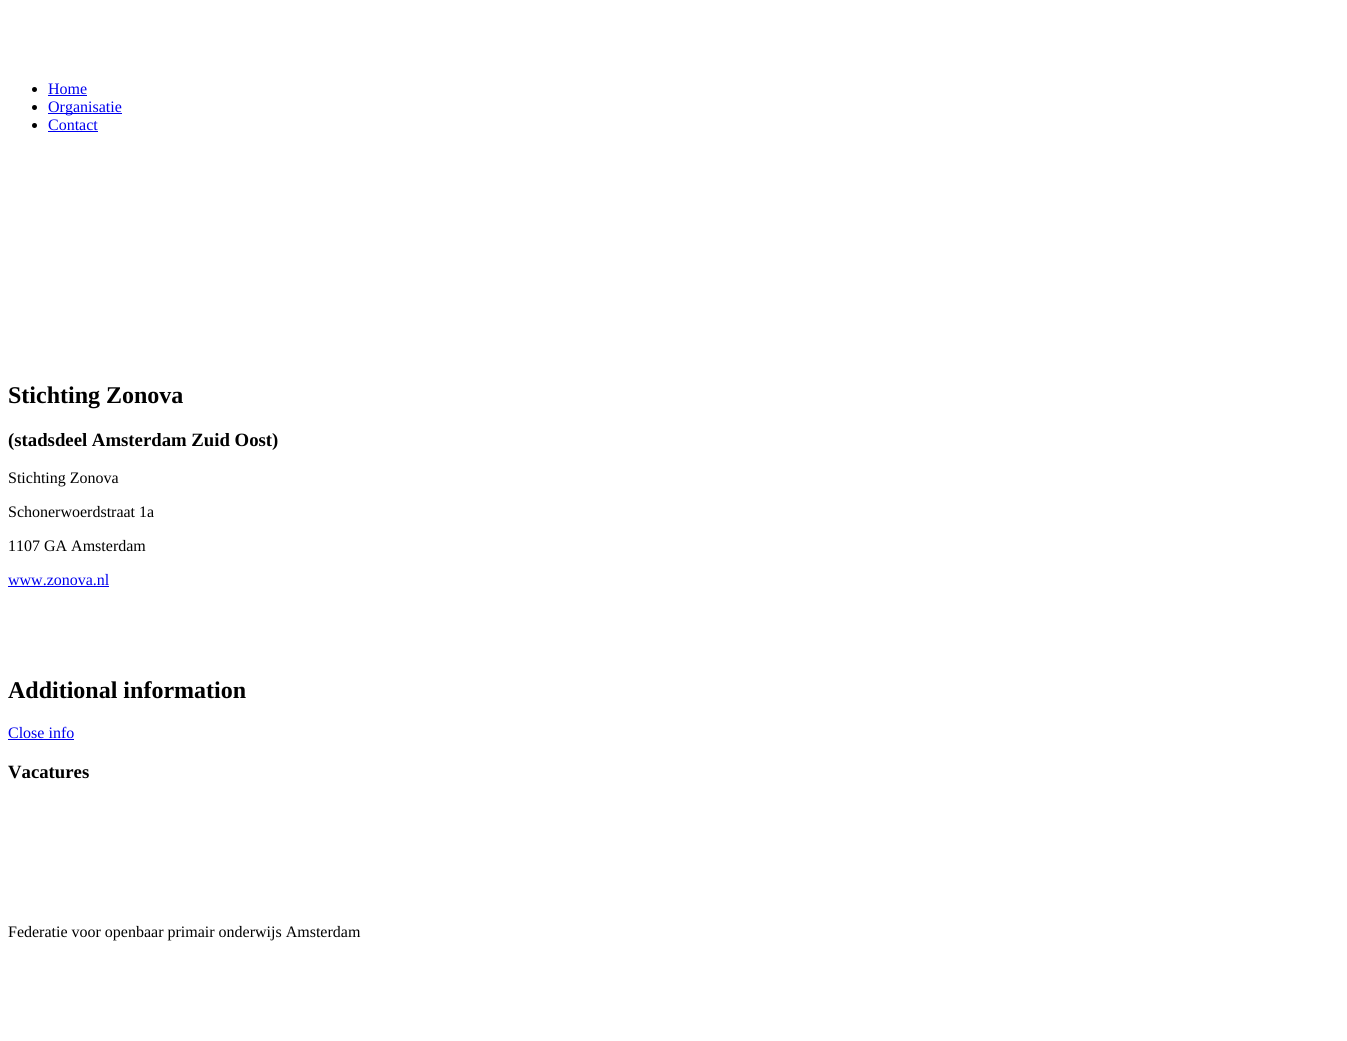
import math
import cairo



def draw(context):
    context.set_source_rgb(1, 1, 1)
    context.paint()
    context.set_source_rgb(0, 0, 0)
    context.arc(34.5, 89.5, 2.5, 0, 2 * math.pi)
    context.fill()
    context.set_source_rgb(0, 0, 238 / 255)
    context.rectangle(48, 95, 39, 1)
    context.fill()
    context.set_source_rgb(0, 0, 0)
    context.arc(34.5, 107.5, 2.5, 0, 2 * math.pi)
    context.fill()
    context.set_source_rgb(0, 0, 238 / 255)
    context.rectangle(48, 113, 74, 1)
    context.fill()
    context.set_source_rgb(0, 0, 0)
    context.arc(34.5, 125.5, 2.5, 0, 2 * math.pi)
    context.fill()
    context.set_source_rgb(0, 0, 238 / 255)
    context.rectangle(48, 131, 50, 1)
    context.fill()
    context.rectangle(8, 586, 101, 1)
    context.fill()
    context.rectangle(8, 739, 66, 1)
    context.fill()
    context.select_font_face("Liberation Serif")
    context.set_font_size(16)
    context.move_to(48, 94)
    context.show_text("Home")
    context.move_to(48, 112)
    context.show_text("Organisatie")
    context.move_to(48, 130)
    context.show_text("Contact")
    context.select_font_face("Liberation Serif", cairo.FontSlant.NORMAL, cairo.FontWeight.BOLD)
    context.set_font_size(24)
    context.set_source_rgb(0, 0, 0)
    context.move_to(8, 403)
    context.show_text("Stichting Zonova")
    context.set_font_size(18.75)
    context.move_to(8, 446)
    context.show_text("(stadsdeel Amsterdam Zuid Oost)")
    context.select_font_face("Liberation Serif")
    context.set_font_size(16)
    context.move_to(8, 483)
    context.show_text("Stichting Zonova")
    context.move_to(8, 517)
    context.show_text("Schonerwoerdstraat 1a")
    context.move_to(8, 551)
    context.show_text("1107 GA Amsterdam")
    context.set_source_rgb(0, 0, 238 / 255)
    context.move_to(8, 585)
    context.show_text("www.zonova.nl")
    context.select_font_face("Liberation Serif", cairo.FontSlant.NORMAL, cairo.FontWeight.BOLD)
    context.set_font_size(24)
    context.set_source_rgb(0, 0, 0)
    context.move_to(8, 698)
    context.show_text("Additional information")
    context.select_font_face("Liberation Serif")
    context.set_font_size(16)
    context.set_source_rgb(0, 0, 238 / 255)
    context.move_to(8, 738)
    context.show_text("Close info")
    context.select_font_face("Liberation Serif", cairo.FontSlant.NORMAL, cairo.FontWeight.BOLD)
    context.set_font_size(18.75)
    context.set_source_rgb(0, 0, 0)
    context.move_to(8, 778)
    context.show_text("Vacatures")
    context.select_font_face("Liberation Serif")
    context.set_font_size(16)
    context.move_to(8, 937)
    context.show_text("Federatie voor openbaar primair onderwijs Amsterdam")


surface = cairo.ImageSurface(cairo.Format.RGB24, 1347, 1041)
context = cairo.Context(surface)
options = cairo.FontOptions()
options.set_hint_metrics(cairo.HintMetrics.OFF)
options.set_hint_style(cairo.HintStyle.NONE)
context.set_font_options(options)
context.set_miter_limit(4)
draw(context)
surface.write_to_png("out.png")
